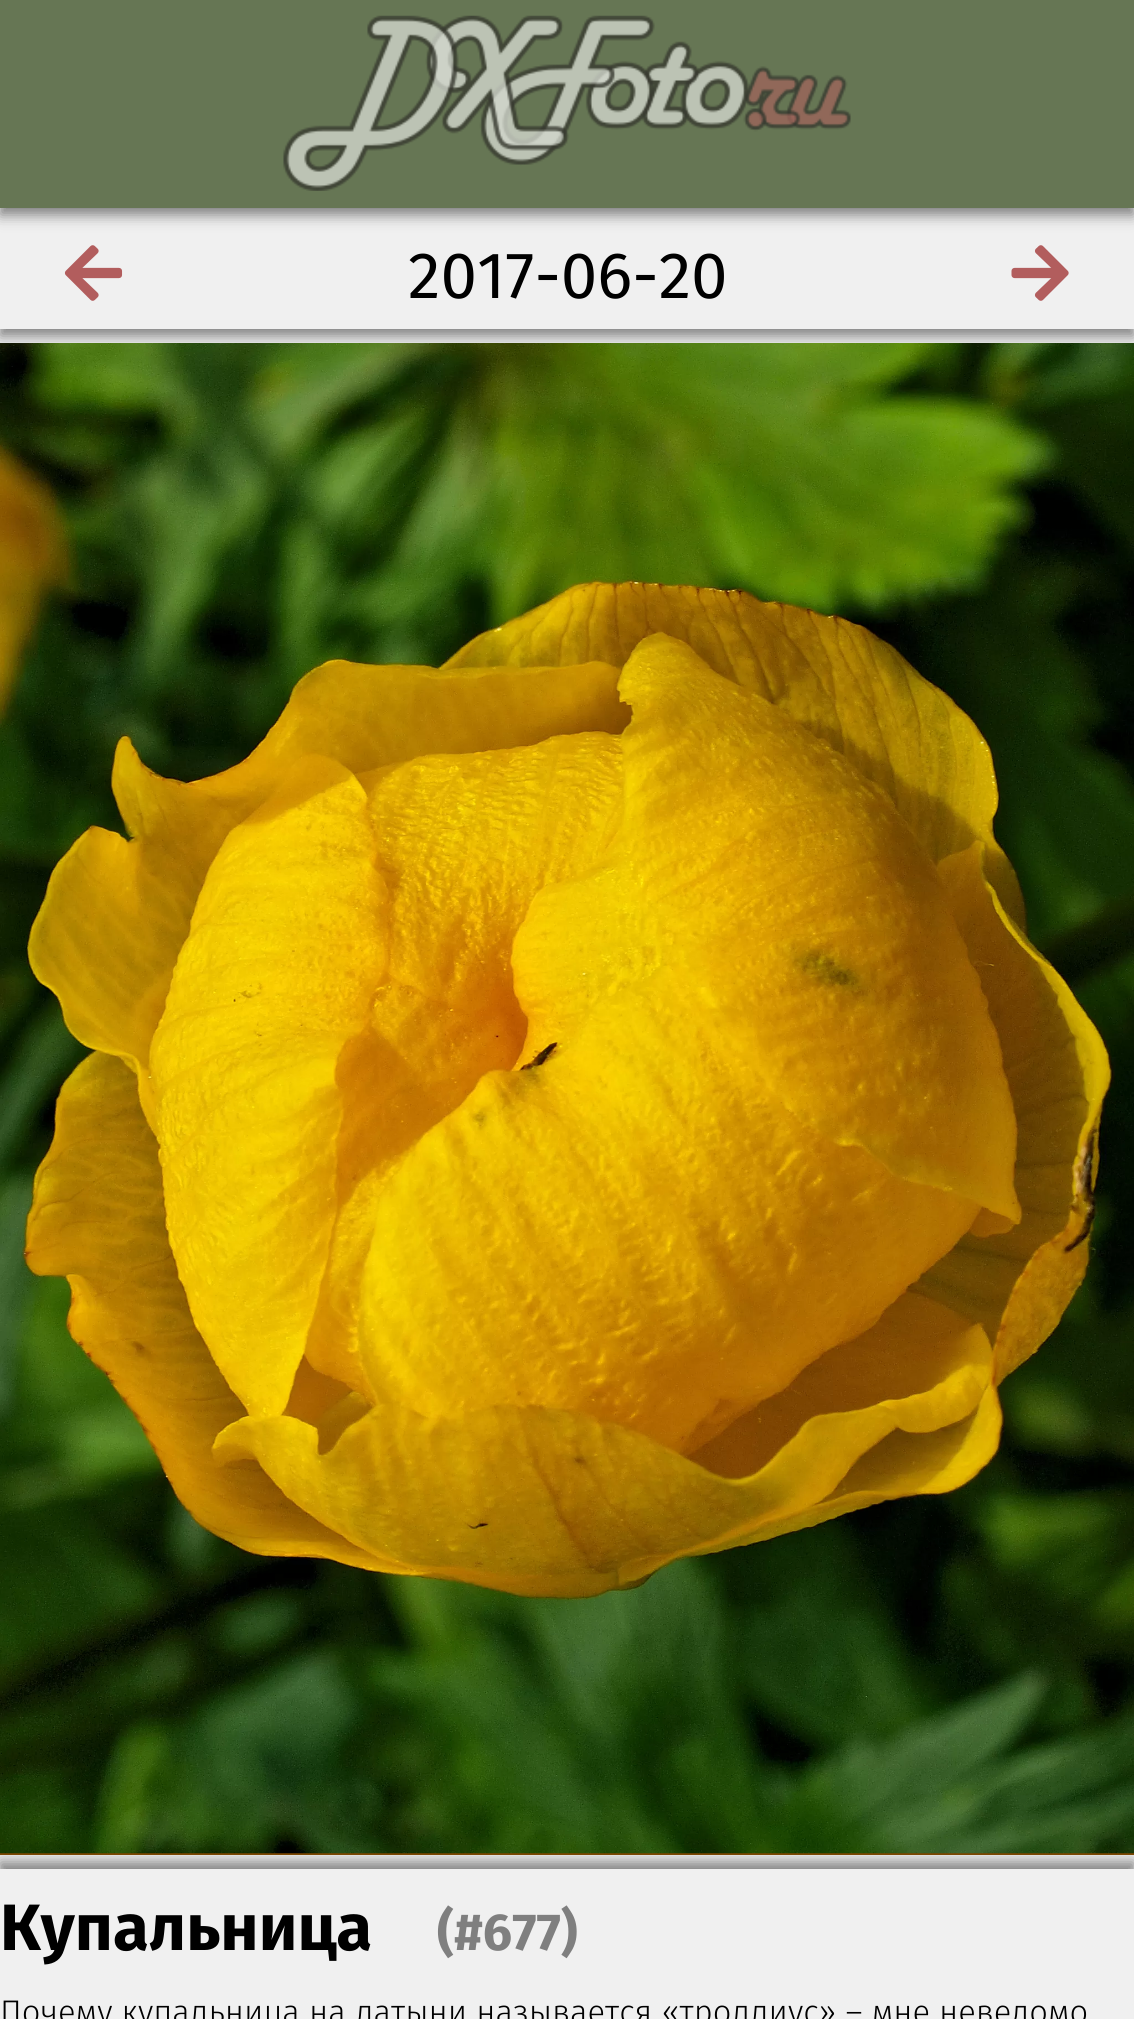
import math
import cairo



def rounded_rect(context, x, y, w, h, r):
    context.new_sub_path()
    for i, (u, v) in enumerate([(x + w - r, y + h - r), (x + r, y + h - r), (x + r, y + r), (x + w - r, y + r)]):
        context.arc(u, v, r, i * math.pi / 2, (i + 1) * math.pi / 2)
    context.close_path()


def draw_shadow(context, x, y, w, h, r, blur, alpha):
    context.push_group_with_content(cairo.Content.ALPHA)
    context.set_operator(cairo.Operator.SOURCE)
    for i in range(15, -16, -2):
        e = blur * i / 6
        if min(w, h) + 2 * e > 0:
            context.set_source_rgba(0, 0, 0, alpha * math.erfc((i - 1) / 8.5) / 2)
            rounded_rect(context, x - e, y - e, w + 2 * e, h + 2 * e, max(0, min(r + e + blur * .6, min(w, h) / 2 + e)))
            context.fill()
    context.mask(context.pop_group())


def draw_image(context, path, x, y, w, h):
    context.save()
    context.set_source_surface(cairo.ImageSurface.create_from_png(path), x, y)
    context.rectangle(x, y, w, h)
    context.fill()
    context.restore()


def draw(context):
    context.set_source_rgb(240 / 255, 240 / 255, 240 / 255)
    context.paint()
    context.set_source_rgb(127 / 255, 127 / 255, 127 / 255)
    draw_shadow(context, 0, 7, 1134, 208, 0, 7, 1)
    context.save()
    context.set_fill_rule(cairo.FillRule.EVEN_ODD)
    context.new_path()
    context.move_to(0, 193)
    context.line_to(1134, 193)
    context.line_to(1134, 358)
    context.line_to(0, 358)
    context.close_path()
    context.move_to(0, 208)
    context.line_to(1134, 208)
    context.line_to(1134, 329)
    context.line_to(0, 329)
    context.close_path()
    context.clip()
    draw_shadow(context, 0, 215, 1134, 121, 0, 7, 1)
    context.restore()
    context.set_source_rgb(102 / 255, 118 / 255, 84 / 255)
    context.rectangle(0, 0, 1134, 208)
    context.fill()
    draw_image(context, "images/1.png", 283, 15, 568, 176)
    draw_image(context, "images/2.png", 64, 245, 59, 56)
    draw_image(context, "images/3.png", 1011, 245, 58, 56)
    context.save()
    context.rectangle(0, 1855, 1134, 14)
    context.clip()
    context.set_source_rgb(127 / 255, 127 / 255, 127 / 255)
    draw_shadow(context, 0, 1862, 1134, 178, 0, 7, 1)
    context.restore()
    context.set_source_rgb(124 / 255, 71 / 255, 1 / 255)
    context.rectangle(0, 1853, 1134, 2)
    context.fill()
    draw_image(context, "images/4.png", 0, 343, 1134, 1511)
    context.select_font_face("Fira Sans")
    context.set_font_size(65.5)
    context.set_source_rgb(0, 0, 0)
    context.move_to(408, 298)
    context.show_text("2017-06-20")
    context.select_font_face("Fira Sans", cairo.FontSlant.NORMAL, cairo.FontWeight.BOLD)
    context.move_to(0, 1950)
    context.show_text("Купальница")
    context.set_font_size(52)
    context.set_source_rgb(127 / 255, 127 / 255, 127 / 255)
    context.move_to(437, 1950)
    context.show_text("(#677)")
    context.select_font_face("Fira Sans Light")
    context.set_font_size(32.7)
    context.set_source_rgb(0, 0, 0)
    context.move_to(0, 2023)
    context.show_text("Почему купальница на латыни называется «троллиус» – мне неведомо")


surface = cairo.ImageSurface(cairo.Format.RGB24, 1134, 2019)
context = cairo.Context(surface)
options = cairo.FontOptions()
options.set_hint_metrics(cairo.HintMetrics.OFF)
options.set_hint_style(cairo.HintStyle.NONE)
context.set_font_options(options)
context.set_miter_limit(4)
draw(context)
surface.write_to_png("out.png")
